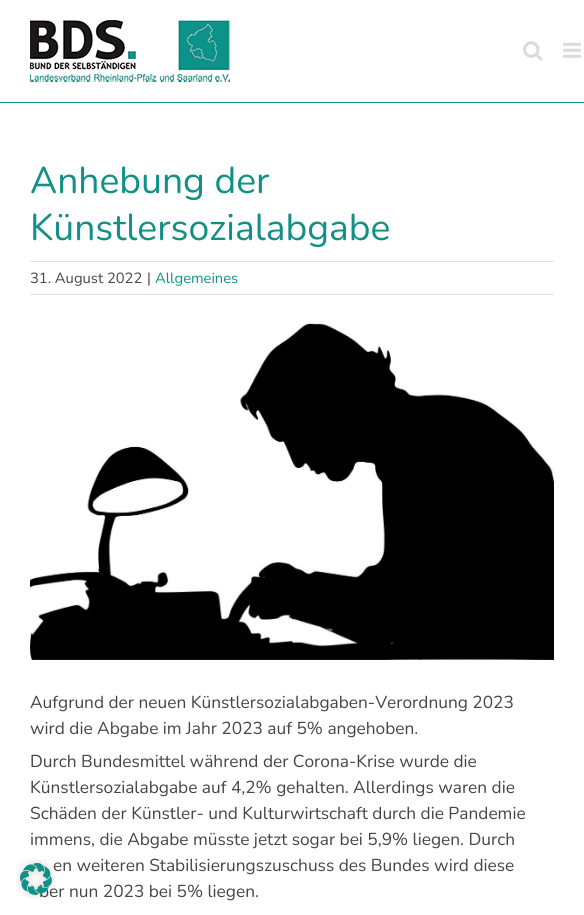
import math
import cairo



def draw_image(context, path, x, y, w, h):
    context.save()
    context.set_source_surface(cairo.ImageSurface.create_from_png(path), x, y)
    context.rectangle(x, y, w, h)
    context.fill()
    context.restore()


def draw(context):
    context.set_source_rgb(1, 1, 1)
    context.paint()
    context.set_source_rgb(17 / 255, 144 / 255, 133 / 255)
    context.rectangle(0, 102, 584, 1)
    context.fill()
    draw_image(context, "images/1.png", 30, 20, 200, 62)
    draw_image(context, "images/2.png", 523, 41, 20, 20)
    draw_image(context, "images/3.png", 563, 42, 18, 16)
    context.set_source_rgb(224 / 255, 222 / 255, 222 / 255)
    context.rectangle(30, 261, 524, 1)
    context.fill()
    context.rectangle(30, 294, 524, 1)
    context.fill()
    draw_image(context, "images/4.png", 30, 323, 524, 337)
    context.select_font_face("Nunito")
    context.set_font_size(37.25)
    context.set_source_rgb(17 / 255, 144 / 255, 133 / 255)
    context.move_to(30, 193)
    context.show_text("Anhebung der")
    context.move_to(30, 240)
    context.show_text("Künstlersozialabgabe")
    context.set_font_size(14.75)
    context.set_source_rgb(69 / 255, 69 / 255, 69 / 255)
    context.move_to(30, 283)
    context.show_text("31. August 2022")
    context.move_to(147, 283)
    context.show_text("|")
    context.set_source_rgb(17 / 255, 144 / 255, 133 / 255)
    context.move_to(155, 283)
    context.show_text("Allgemeines")
    context.set_font_size(17.3)
    context.set_source_rgb(69 / 255, 69 / 255, 69 / 255)
    context.move_to(30, 708)
    context.show_text("Aufgrund der neuen Künstlersozialabgaben-Verordnung 2023")
    context.move_to(30, 734)
    context.show_text("wird die Abgabe im Jahr 2023 auf 5% angehoben.")
    context.move_to(30, 767)
    context.show_text("Durch Bundesmittel während der Corona-Krise wurde die")
    context.move_to(30, 793)
    context.show_text("Künstlersozialabgabe auf 4,2% gehalten. Allerdings waren die")
    context.move_to(30, 819)
    context.show_text("Schäden der Künstler- und Kulturwirtschaft durch die Pandemie")
    context.move_to(30, 845)
    context.show_text("immens, die Abgabe müsste jetzt sogar bei 5,9% liegen. Durch")
    context.move_to(53, 871)
    context.show_text("en weiteren Stabilisierungszuschuss des Bundes wird diese")
    context.move_to(39, 897)
    context.show_text("ber nun 2023 bei 5% liegen.")
    draw_image(context, "images/5.png", 16, 859, 40, 40)


surface = cairo.ImageSurface(cairo.Format.RGB24, 584, 915)
context = cairo.Context(surface)
options = cairo.FontOptions()
options.set_hint_metrics(cairo.HintMetrics.OFF)
options.set_hint_style(cairo.HintStyle.NONE)
context.set_font_options(options)
context.set_miter_limit(4)
draw(context)
surface.write_to_png("out.png")
